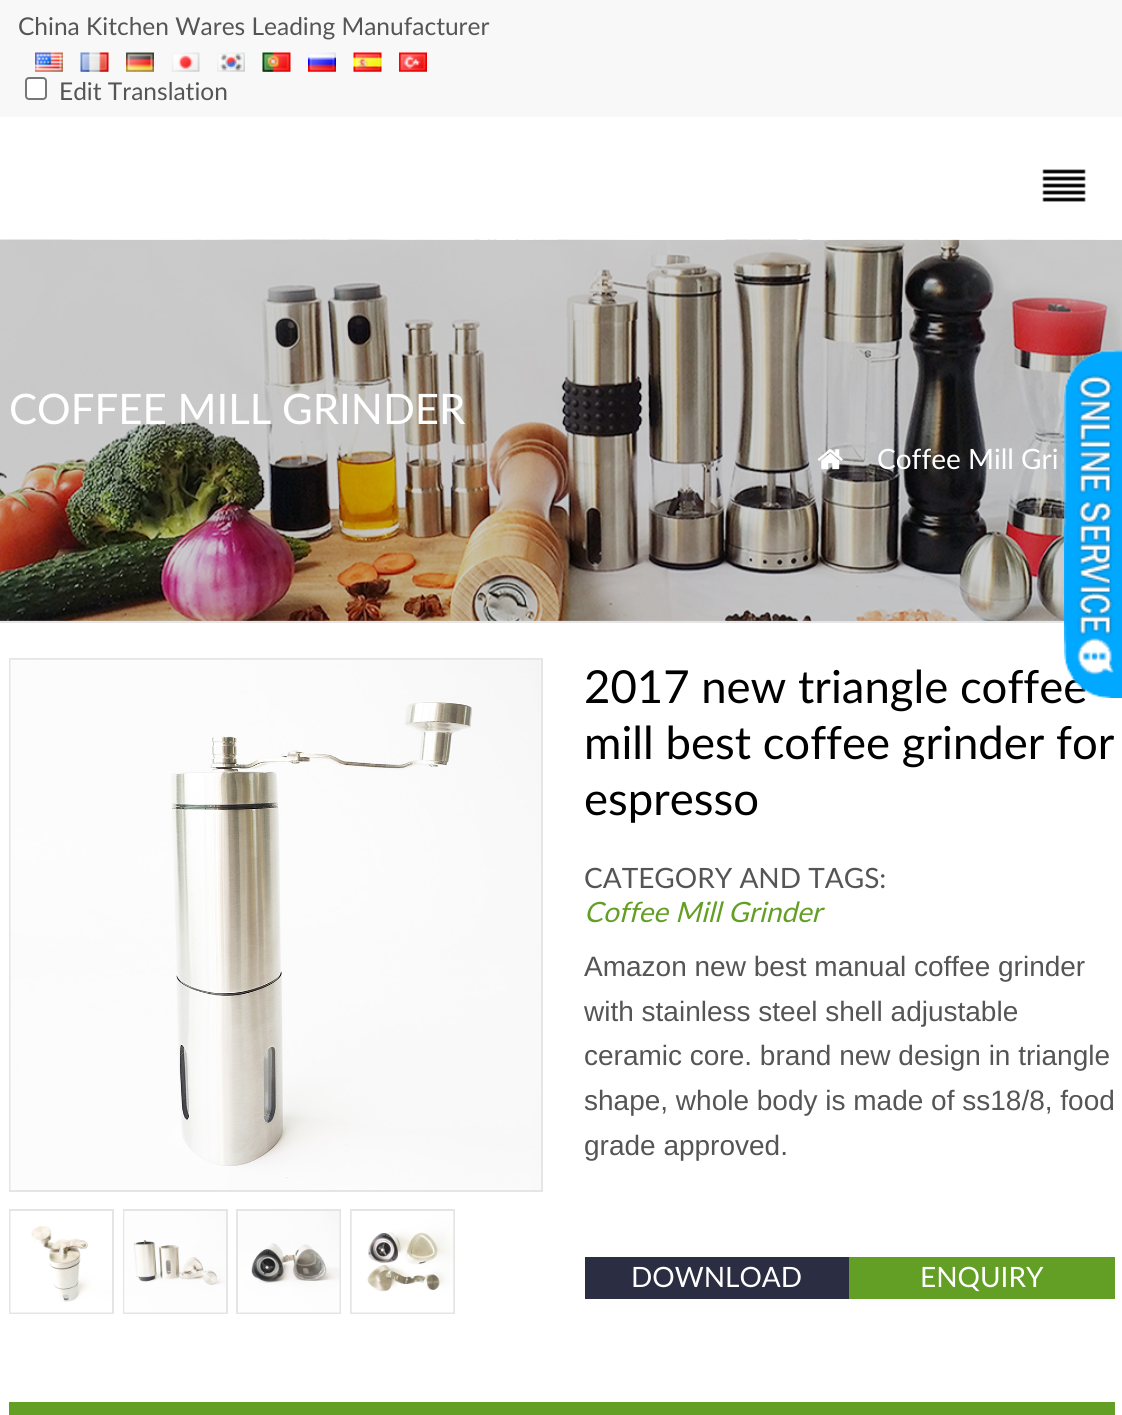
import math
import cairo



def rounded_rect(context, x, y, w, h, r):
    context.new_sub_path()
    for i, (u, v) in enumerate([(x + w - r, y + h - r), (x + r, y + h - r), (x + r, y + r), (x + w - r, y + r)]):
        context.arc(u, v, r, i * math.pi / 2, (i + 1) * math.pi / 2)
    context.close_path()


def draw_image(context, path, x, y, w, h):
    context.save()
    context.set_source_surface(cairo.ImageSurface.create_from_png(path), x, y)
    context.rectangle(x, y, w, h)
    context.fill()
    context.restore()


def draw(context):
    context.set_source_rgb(1, 1, 1)
    context.paint()
    context.set_source_rgb(248 / 255, 248 / 255, 248 / 255)
    context.rectangle(0, 0, 1122, 117)
    context.fill()
    draw_image(context, "images/1.png", 35, 52, 28, 20)
    draw_image(context, "images/2.png", 80, 52, 29, 20)
    draw_image(context, "images/3.png", 126, 52, 28, 20)
    draw_image(context, "images/4.png", 171, 52, 29, 20)
    draw_image(context, "images/5.png", 217, 52, 28, 20)
    draw_image(context, "images/6.png", 262, 52, 29, 20)
    draw_image(context, "images/7.png", 308, 52, 28, 20)
    draw_image(context, "images/8.png", 353, 52, 29, 20)
    draw_image(context, "images/9.png", 399, 52, 28, 20)
    context.set_source_rgb(1, 1, 1)
    rounded_rect(context, 26, 78, 20, 21, 3)
    context.fill_preserve()
    context.set_source_rgb(118 / 255, 118 / 255, 118 / 255)
    context.stroke()
    draw_image(context, "images/10.png", 1042, 169, 44, 33)
    draw_image(context, "images/12.png", 0, 239, 1122, 382)
    context.set_source_rgb(229 / 255, 229 / 255, 229 / 255)
    context.rectangle(0, 621, 1067, 2)
    context.fill()
    draw_image(context, "images/13.png", 817, 449, 26, 21)
    context.rectangle(10, 659, 532, 532)
    context.stroke()
    draw_image(context, "images/14.png", 10, 659, 531, 531)
    context.rectangle(10, 1210, 103, 103)
    context.stroke()
    draw_image(context, "images/15.png", 10, 1211, 102, 102)
    context.rectangle(124, 1210, 103, 103)
    context.stroke()
    draw_image(context, "images/16.png", 124, 1211, 102, 102)
    context.rectangle(237, 1210, 103, 103)
    context.stroke()
    draw_image(context, "images/17.png", 238, 1211, 102, 102)
    context.rectangle(351, 1210, 103, 103)
    context.stroke()
    draw_image(context, "images/18.png", 351, 1211, 103, 102)
    context.set_source_rgb(43 / 255, 45 / 255, 66 / 255)
    context.rectangle(585, 1257, 264, 42)
    context.fill()
    context.set_source_rgb(99 / 255, 159 / 255, 36 / 255)
    context.rectangle(849, 1257, 266, 42)
    context.fill()
    context.rectangle(9, 1402, 1106, 13)
    context.fill()
    context.select_font_face("Lato")
    context.set_font_size(24.5)
    context.set_source_rgb(85 / 255, 85 / 255, 85 / 255)
    context.move_to(18, 35)
    context.show_text("China Kitchen Wares Leading Manufacturer")
    context.move_to(59, 100)
    context.show_text("Edit Translation")
    context.set_font_size(42)
    context.set_source_rgb(1, 1, 1)
    context.move_to(9, 424)
    context.show_text("COFFEE MILL GRINDER")
    context.set_font_size(28)
    context.move_to(877, 469)
    context.show_text("Coffee Mill Gri")
    context.set_font_size(45.5)
    context.set_source_rgb(0, 0, 0)
    context.move_to(584, 703)
    context.show_text("2017 new triangle coffee")
    draw_image(context, "images/11.png", 1064, 350, 58, 348)
    context.move_to(584, 759)
    context.show_text("mill best coffee grinder for")
    context.move_to(584, 815)
    context.show_text("espresso")
    context.set_font_size(28)
    context.set_source_rgb(85 / 255, 85 / 255, 85 / 255)
    context.move_to(584, 888)
    context.show_text("CATEGORY AND TAGS:")
    context.select_font_face("Lato", cairo.FontSlant.ITALIC)
    context.set_source_rgb(99 / 255, 159 / 255, 36 / 255)
    context.move_to(584, 922)
    context.show_text("Coffee Mill Grinder")
    context.select_font_face("Liberation Sans")
    context.set_source_rgb(85 / 255, 85 / 255, 85 / 255)
    context.move_to(584, 976)
    context.show_text("Amazon new best manual coffee grinder")
    context.move_to(584, 1021)
    context.show_text("with stainless steel shell adjustable")
    context.move_to(584, 1065)
    context.show_text("ceramic core. brand new design in triangle")
    context.move_to(584, 1110)
    context.show_text("shape, whole body is made of ss18/8, food")
    context.move_to(584, 1155)
    context.show_text("grade approved.")
    context.select_font_face("Lato")
    context.set_source_rgb(1, 1, 1)
    context.move_to(631, 1287)
    context.show_text("DOWNLOAD")
    context.move_to(920, 1287)
    context.show_text("ENQUIRY")


surface = cairo.ImageSurface(cairo.Format.RGB24, 1122, 1415)
context = cairo.Context(surface)
options = cairo.FontOptions()
options.set_hint_metrics(cairo.HintMetrics.OFF)
options.set_hint_style(cairo.HintStyle.NONE)
context.set_font_options(options)
context.set_miter_limit(4)
draw(context)
surface.write_to_png("out.png")
